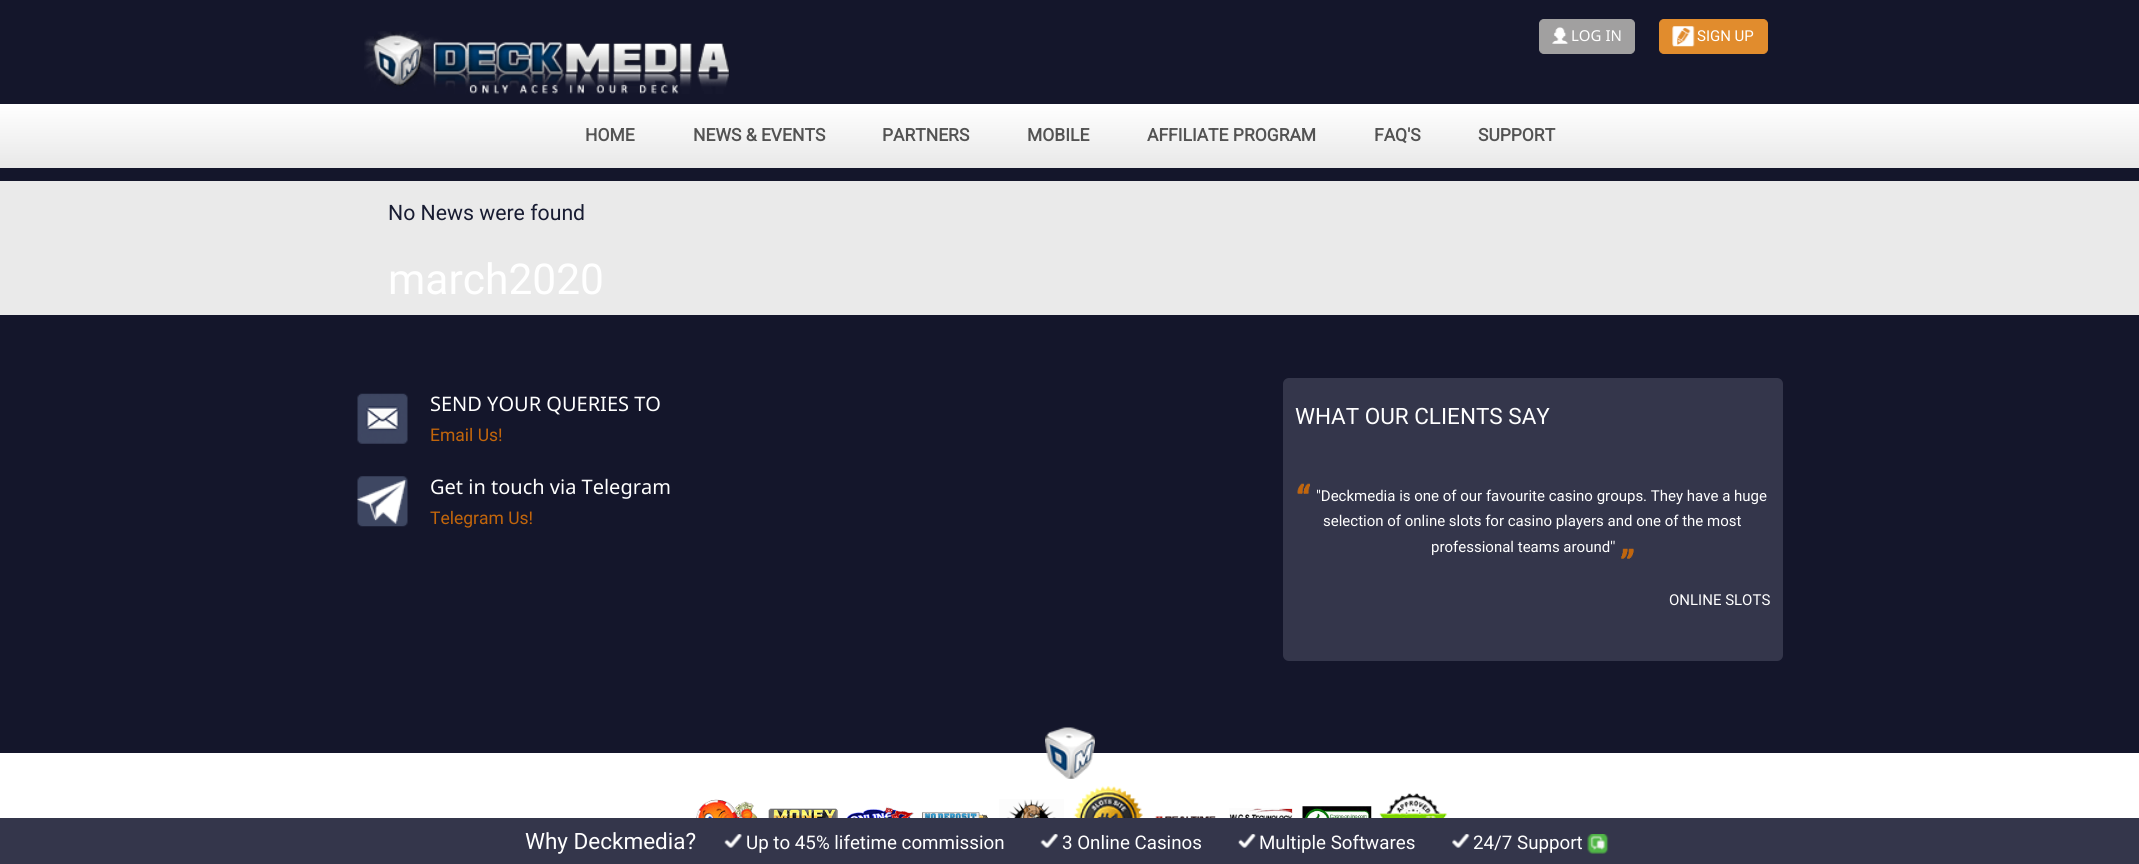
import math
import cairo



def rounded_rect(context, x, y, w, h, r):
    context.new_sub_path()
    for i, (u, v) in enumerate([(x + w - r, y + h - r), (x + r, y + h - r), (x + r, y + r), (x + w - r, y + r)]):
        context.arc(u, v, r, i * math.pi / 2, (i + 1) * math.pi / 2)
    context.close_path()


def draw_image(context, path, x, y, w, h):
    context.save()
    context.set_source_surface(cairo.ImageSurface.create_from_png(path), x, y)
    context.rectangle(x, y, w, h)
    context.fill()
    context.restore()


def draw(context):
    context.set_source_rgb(20 / 255, 22 / 255, 43 / 255)
    context.paint()
    draw_image(context, "images/1.png", 364, 31, 366, 63)
    context.set_source_rgb(161 / 255, 160 / 255, 160 / 255)
    rounded_rect(context, 1539.5, 19.5, 95, 34, 4.5)
    context.fill_preserve()
    context.set_line_width(1)
    context.stroke()
    draw_image(context, "images/2.png", 1552, 27, 17, 17)
    context.set_source_rgb(225 / 255, 140 / 255, 45 / 255)
    rounded_rect(context, 1659.5, 19.5, 108, 34, 4.5)
    context.fill_preserve()
    context.stroke()
    draw_image(context, "images/3.png", 1672, 26, 23, 21)
    gradient = cairo.LinearGradient(1070, 104, 1070, 168)
    gradient.add_color_stop_rgba(0, 1, 1, 1, 1)
    gradient.add_color_stop_rgba(1, 232 / 255, 232 / 255, 232 / 255, 1)
    context.set_source(gradient)
    context.rectangle(0, 104, 2139, 64)
    context.fill()
    context.set_source_rgb(234 / 255, 234 / 255, 234 / 255)
    context.rectangle(0, 181, 2139, 134)
    context.fill()
    context.set_source_rgb(52 / 255, 54 / 255, 75 / 255)
    context.rectangle(0, 818, 2139, 46)
    context.fill()
    draw_image(context, "images/4.png", 724, 834, 18, 14)
    draw_image(context, "images/5.png", 1040, 834, 18, 14)
    draw_image(context, "images/6.png", 1238, 834, 18, 14)
    draw_image(context, "images/7.png", 1452, 834, 18, 14)
    draw_image(context, "images/8.png", 1587, 834, 22, 20)
    draw_image(context, "images/9.png", 357, 393, 51, 51)
    draw_image(context, "images/10.png", 357, 476, 51, 51)
    rounded_rect(context, 1283, 378, 500, 283, 6)
    context.fill()
    draw_image(context, "images/11.png", 1297, 483, 13, 11)
    draw_image(context, "images/12.png", 1621, 548, 13, 11)
    context.set_source_rgb(1, 1, 1)
    context.rectangle(0, 753, 2139, 65)
    context.fill()
    draw_image(context, "images/13.png", 1045, 727, 50, 52)
    draw_image(context, "images/14.png", 696, 799, 62, 19)
    draw_image(context, "images/15.png", 768, 808, 70, 10)
    draw_image(context, "images/16.png", 847, 806, 67, 12)
    draw_image(context, "images/17.png", 922, 812, 66, 6)
    draw_image(context, "images/18.png", 999, 799, 65, 19)
    draw_image(context, "images/19.png", 1073, 786, 70, 32)
    draw_image(context, "images/20.png", 1154, 816, 62, 2)
    draw_image(context, "images/21.png", 1229, 808, 64, 10)
    draw_image(context, "images/22.png", 1302, 806, 70, 12)
    draw_image(context, "images/23.png", 1379, 793, 69, 25)
    context.select_font_face("Noto Sans")
    context.set_font_size(15)
    context.move_to(1571, 41)
    context.show_text("LOG IN")
    context.select_font_face("Roboto")
    context.move_to(1697, 41)
    context.show_text("SIGN UP")
    context.select_font_face("Roboto", cairo.FontSlant.NORMAL, cairo.FontWeight.BOLD)
    context.set_font_size(17.5)
    context.set_source_rgb(83 / 255, 83 / 255, 83 / 255)
    context.move_to(585, 141)
    context.show_text("HOME")
    context.move_to(693, 141)
    context.show_text("NEWS & EVENTS")
    context.move_to(882, 141)
    context.show_text("PARTNERS")
    context.move_to(1027, 141)
    context.show_text("MOBILE")
    context.move_to(1147, 141)
    context.show_text("AFFILIATE PROGRAM")
    context.move_to(1374, 141)
    context.show_text("FAQ'S")
    context.move_to(1478, 141)
    context.show_text("SUPPORT")
    context.select_font_face("Roboto")
    context.set_font_size(21.25)
    context.set_source_rgb(24 / 255, 28 / 255, 50 / 255)
    context.move_to(388, 220)
    context.show_text("No News were found")
    context.set_font_size(42.5)
    context.set_source_rgb(1, 1, 1)
    context.move_to(388, 294)
    context.show_text("march2020")
    context.set_font_size(22.5)
    context.move_to(525, 849)
    context.show_text("Why Deckmedia?")
    context.set_font_size(18.75)
    context.move_to(746, 849)
    context.show_text("Up to 45% lifetime commission")
    context.move_to(1062, 849)
    context.show_text("3 Online Casinos")
    context.move_to(1259, 849)
    context.show_text("Multiple Softwares")
    context.move_to(1473, 849)
    context.show_text("24/7 Support")
    context.select_font_face("Noto Sans")
    context.set_font_size(20)
    context.move_to(430, 411)
    context.show_text("SEND YOUR QUERIES TO")
    context.select_font_face("Roboto")
    context.set_font_size(17.5)
    context.set_source_rgb(194 / 255, 101 / 255, 11 / 255)
    context.move_to(430, 441)
    context.show_text("Email Us!")
    context.select_font_face("Noto Sans")
    context.set_font_size(20)
    context.set_source_rgb(1, 1, 1)
    context.move_to(430, 494)
    context.show_text("Get in touch via Telegram")
    context.select_font_face("Roboto")
    context.set_font_size(17.5)
    context.set_source_rgb(194 / 255, 101 / 255, 11 / 255)
    context.move_to(430, 524)
    context.show_text("Telegram Us!")
    context.set_font_size(22.5)
    context.set_source_rgb(1, 1, 1)
    context.move_to(1295, 424)
    context.show_text("WHAT OUR CLIENTS SAY")
    context.set_font_size(15)
    context.move_to(1316, 501)
    context.show_text("\"Deckmedia is one of our favourite casino groups. They have a huge")
    context.move_to(1323, 526)
    context.show_text("selection of online slots for casino players and one of the most")
    context.move_to(1431, 552)
    context.show_text("professional teams around''")
    context.move_to(1669, 605)
    context.show_text("ONLINE SLOTS")


surface = cairo.ImageSurface(cairo.Format.RGB24, 2139, 864)
context = cairo.Context(surface)
options = cairo.FontOptions()
options.set_hint_metrics(cairo.HintMetrics.OFF)
options.set_hint_style(cairo.HintStyle.NONE)
context.set_font_options(options)
context.set_miter_limit(4)
draw(context)
surface.write_to_png("out.png")
